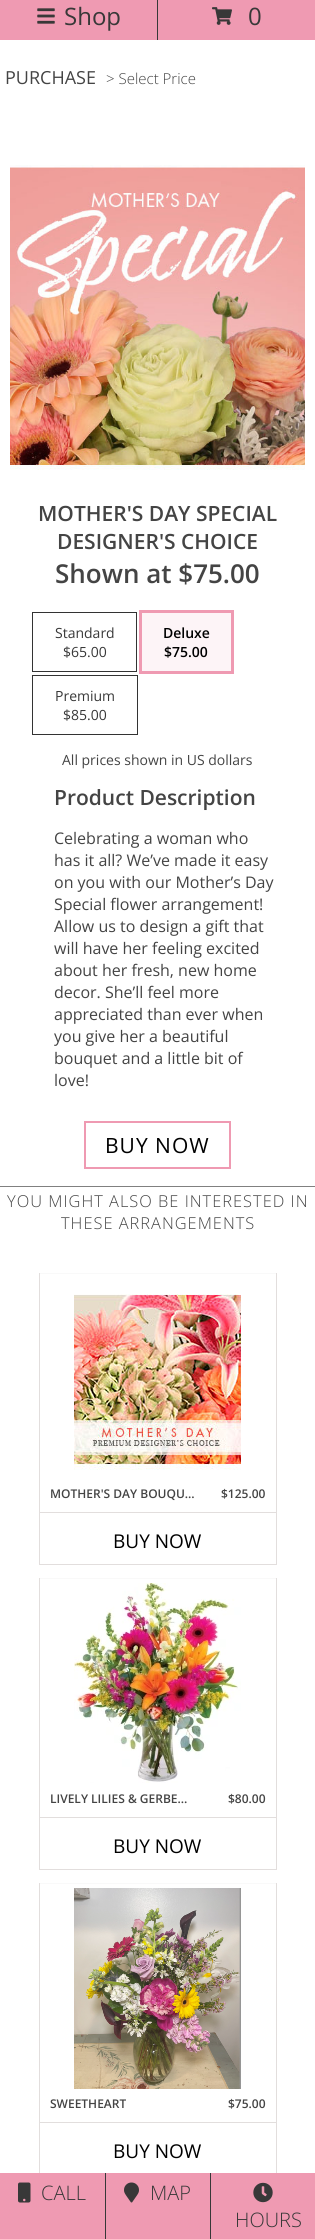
import math
import cairo



def draw_spaced(context, x, y, s, letter, word):
    context.move_to(x, y)
    for ch in s:
        context.show_text(ch)
        context.rel_move_to(letter + word * (ch == ' '), 0)


def draw_image(context, path, x, y, w, h):
    context.save()
    context.set_source_surface(cairo.ImageSurface.create_from_png(path), x, y)
    context.rectangle(x, y, w, h)
    context.fill()
    context.restore()


def draw(context):
    context.set_source_rgb(1, 1, 1)
    context.paint()
    context.set_source_rgb(56 / 255, 56 / 255, 56 / 255)
    context.rectangle(157, 0, 1, 40)
    context.fill()
    context.set_source_rgb(239 / 255, 154 / 255, 178 / 255)
    context.rectangle(0, 0, 157, 40)
    context.fill()
    draw_image(context, "images/1.png", 37, 8, 18, 16)
    context.rectangle(158, 0, 157, 40)
    context.fill()
    draw_image(context, "images/2.png", 212, 7, 20, 18)
    draw_image(context, "images/3.png", 10, 165, 295, 305)
    context.rectangle(32.5, 612.5, 104, 59)
    context.set_source_rgb(51 / 255, 51 / 255, 51 / 255)
    context.set_line_width(1)
    context.stroke()
    context.rectangle(140.5, 611.5, 92, 61)
    context.set_source_rgb(239 / 255, 154 / 255, 178 / 255)
    context.set_line_width(3)
    context.stroke()
    context.set_source_rgb(253 / 255, 244 / 255, 247 / 255)
    context.rectangle(142, 613, 89, 58)
    context.fill()
    context.rectangle(32.5, 675.5, 105, 59)
    context.set_source_rgb(51 / 255, 51 / 255, 51 / 255)
    context.set_line_width(1)
    context.stroke()
    context.rectangle(85, 1122, 145, 46)
    context.set_source_rgb(239 / 255, 154 / 255, 178 / 255)
    context.set_line_width(2)
    context.stroke()
    context.set_source_rgb(128 / 255, 128 / 255, 128 / 255)
    context.rectangle(0, 1186, 315, 1)
    context.fill()
    context.set_source_rgb(249 / 255, 249 / 255, 249 / 255)
    context.rectangle(39, 1273, 238, 1)
    context.fill()
    context.set_source_rgb(226 / 255, 222 / 255, 221 / 255)
    context.rectangle(276, 1273, 1, 292)
    context.fill()
    context.rectangle(39, 1564, 238, 1)
    context.fill()
    context.rectangle(39, 1273, 1, 292)
    context.fill()
    draw_image(context, "images/4.png", 74, 1294, 167, 176)
    context.rectangle(40, 1512, 236, 1)
    context.fill()
    context.set_source_rgb(249 / 255, 249 / 255, 249 / 255)
    context.rectangle(39, 1578, 238, 1)
    context.fill()
    context.set_source_rgb(226 / 255, 222 / 255, 221 / 255)
    context.rectangle(276, 1578, 1, 292)
    context.fill()
    context.rectangle(39, 1869, 238, 1)
    context.fill()
    context.rectangle(39, 1578, 1, 292)
    context.fill()
    draw_image(context, "images/5.png", 74, 1583, 167, 200)
    context.rectangle(40, 1817, 236, 1)
    context.fill()
    context.set_source_rgb(249 / 255, 249 / 255, 249 / 255)
    context.rectangle(39, 1883, 238, 1)
    context.fill()
    context.set_source_rgb(226 / 255, 222 / 255, 221 / 255)
    context.rectangle(276, 1883, 1, 292)
    context.fill()
    context.rectangle(39, 1883, 1, 292)
    context.fill()
    draw_image(context, "images/6.png", 74, 1888, 167, 201)
    context.rectangle(40, 2122, 236, 1)
    context.fill()
    context.set_source_rgb(239 / 255, 154 / 255, 178 / 255)
    context.rectangle(0, 2173, 105, 66)
    context.fill()
    draw_image(context, "images/7.png", 18, 2182, 13, 21)
    context.rectangle(106, 2173, 104, 66)
    context.fill()
    context.set_source_rgb(56 / 255, 56 / 255, 56 / 255)
    context.rectangle(105, 2173, 1, 66)
    context.fill()
    draw_image(context, "images/8.png", 124, 2182, 15, 21)
    context.set_source_rgb(239 / 255, 154 / 255, 178 / 255)
    context.rectangle(211, 2173, 104, 66)
    context.fill()
    context.set_source_rgb(56 / 255, 56 / 255, 56 / 255)
    context.rectangle(210, 2173, 1, 66)
    context.fill()
    draw_image(context, "images/9.png", 253, 2182, 20, 21)
    context.select_font_face("Open Sans")
    context.set_font_size(24)
    context.move_to(64, 25)
    context.show_text("Shop")
    context.move_to(248, 25)
    context.show_text("0")
    context.set_font_size(18)
    context.set_source_rgb(68 / 255, 68 / 255, 68 / 255)
    context.move_to(5, 84)
    context.show_text("PURCHASE")
    context.select_font_face("Open Sans Light")
    context.set_font_size(15)
    context.move_to(106, 84)
    context.show_text("> Select Price")
    context.select_font_face("Open Sans SemiBold")
    context.set_font_size(21)
    context.move_to(38, 521)
    context.show_text("MOTHER'S DAY SPECIAL")
    context.move_to(57, 549)
    context.show_text("DESIGNER'S CHOICE")
    context.set_font_size(26)
    context.move_to(55, 583)
    context.show_text("Shown at $75.00")
    context.select_font_face("Open Sans")
    context.set_font_size(14)
    context.set_source_rgb(56 / 255, 56 / 255, 56 / 255)
    context.move_to(55, 638)
    context.show_text("Standard")
    context.move_to(63, 657)
    context.show_text("$65.00")
    context.select_font_face("Open Sans SemiBold")
    context.set_source_rgb(0, 0, 0)
    context.move_to(163, 638)
    context.show_text("Deluxe")
    context.move_to(164, 657)
    context.show_text("$75.00")
    context.select_font_face("Open Sans")
    context.set_source_rgb(56 / 255, 56 / 255, 56 / 255)
    context.move_to(55, 701)
    context.show_text("Premium")
    context.move_to(63, 720)
    context.show_text("$85.00")
    context.set_source_rgb(68 / 255, 68 / 255, 68 / 255)
    context.move_to(62, 765)
    context.show_text("All prices shown in US dollars")
    context.select_font_face("Open Sans SemiBold")
    context.set_font_size(21)
    context.move_to(54, 805)
    context.show_text("Product Description")
    context.select_font_face("Open Sans")
    context.set_font_size(16)
    context.move_to(54, 844)
    context.show_text("Celebrating a woman who")
    context.move_to(54, 866)
    context.show_text("has it all? We’ve made it easy")
    context.move_to(54, 888)
    context.show_text("on you with our Mother’s Day")
    context.move_to(54, 910)
    context.show_text("Special flower arrangement!")
    context.move_to(54, 932)
    context.show_text("Allow us to design a gift that")
    context.move_to(54, 954)
    context.show_text("will have her feeling excited")
    context.move_to(54, 976)
    context.show_text("about her fresh, new home")
    context.move_to(54, 998)
    context.show_text("decor. She’ll feel more")
    context.move_to(54, 1020)
    context.show_text("appreciated than ever when")
    context.move_to(54, 1042)
    context.show_text("you give her a beautiful")
    context.move_to(54, 1064)
    context.show_text("bouquet and a little bit of")
    context.move_to(54, 1086)
    context.show_text("love!")
    context.set_font_size(21)
    context.set_source_rgb(0, 0, 0)
    draw_spaced(context, 105, 1153, "BUY NOW", 1, 0)
    context.select_font_face("Open Sans Light")
    context.set_font_size(16.4)
    context.set_source_rgb(68 / 255, 68 / 255, 68 / 255)
    draw_spaced(context, 7, 1207, "YOU MIGHT ALSO BE INTERESTED IN", 1, 0)
    draw_spaced(context, 61, 1229, "THESE ARRANGEMENTS", 1, 0)
    context.select_font_face("Open Sans SemiBold")
    context.set_font_size(12)
    context.move_to(50, 1498)
    context.show_text("MOTHER'S DAY BOUQU…")
    context.move_to(221, 1498)
    context.show_text("$125.00")
    context.select_font_face("Open Sans")
    context.set_font_size(19)
    context.set_source_rgb(0, 0, 0)
    context.move_to(113, 1548)
    context.show_text("BUY NOW")
    context.select_font_face("Open Sans SemiBold")
    context.set_font_size(12)
    context.set_source_rgb(68 / 255, 68 / 255, 68 / 255)
    context.move_to(50, 1803)
    context.show_text("LIVELY LILIES & GERBE…")
    context.move_to(228, 1803)
    context.show_text("$80.00")
    context.select_font_face("Open Sans")
    context.set_font_size(19)
    context.set_source_rgb(0, 0, 0)
    context.move_to(113, 1853)
    context.show_text("BUY NOW")
    context.select_font_face("Open Sans SemiBold")
    context.set_font_size(12)
    context.set_source_rgb(68 / 255, 68 / 255, 68 / 255)
    context.move_to(50, 2108)
    context.show_text("SWEETHEART")
    context.move_to(228, 2108)
    context.show_text("$75.00")
    context.select_font_face("Open Sans")
    context.set_font_size(19)
    context.set_source_rgb(0, 0, 0)
    context.move_to(113, 2158)
    context.show_text("BUY NOW")
    context.select_font_face("Open Sans Light")
    context.set_font_size(20)
    context.set_source_rgb(56 / 255, 56 / 255, 56 / 255)
    context.move_to(41, 2200)
    context.show_text("CALL")
    context.move_to(150, 2200)
    context.show_text("MAP")
    context.move_to(235, 2227)
    context.show_text("HOURS")


surface = cairo.ImageSurface(cairo.Format.RGB24, 315, 2239)
context = cairo.Context(surface)
options = cairo.FontOptions()
options.set_hint_metrics(cairo.HintMetrics.OFF)
options.set_hint_style(cairo.HintStyle.NONE)
context.set_font_options(options)
context.set_miter_limit(4)
draw(context)
surface.write_to_png("out.png")
